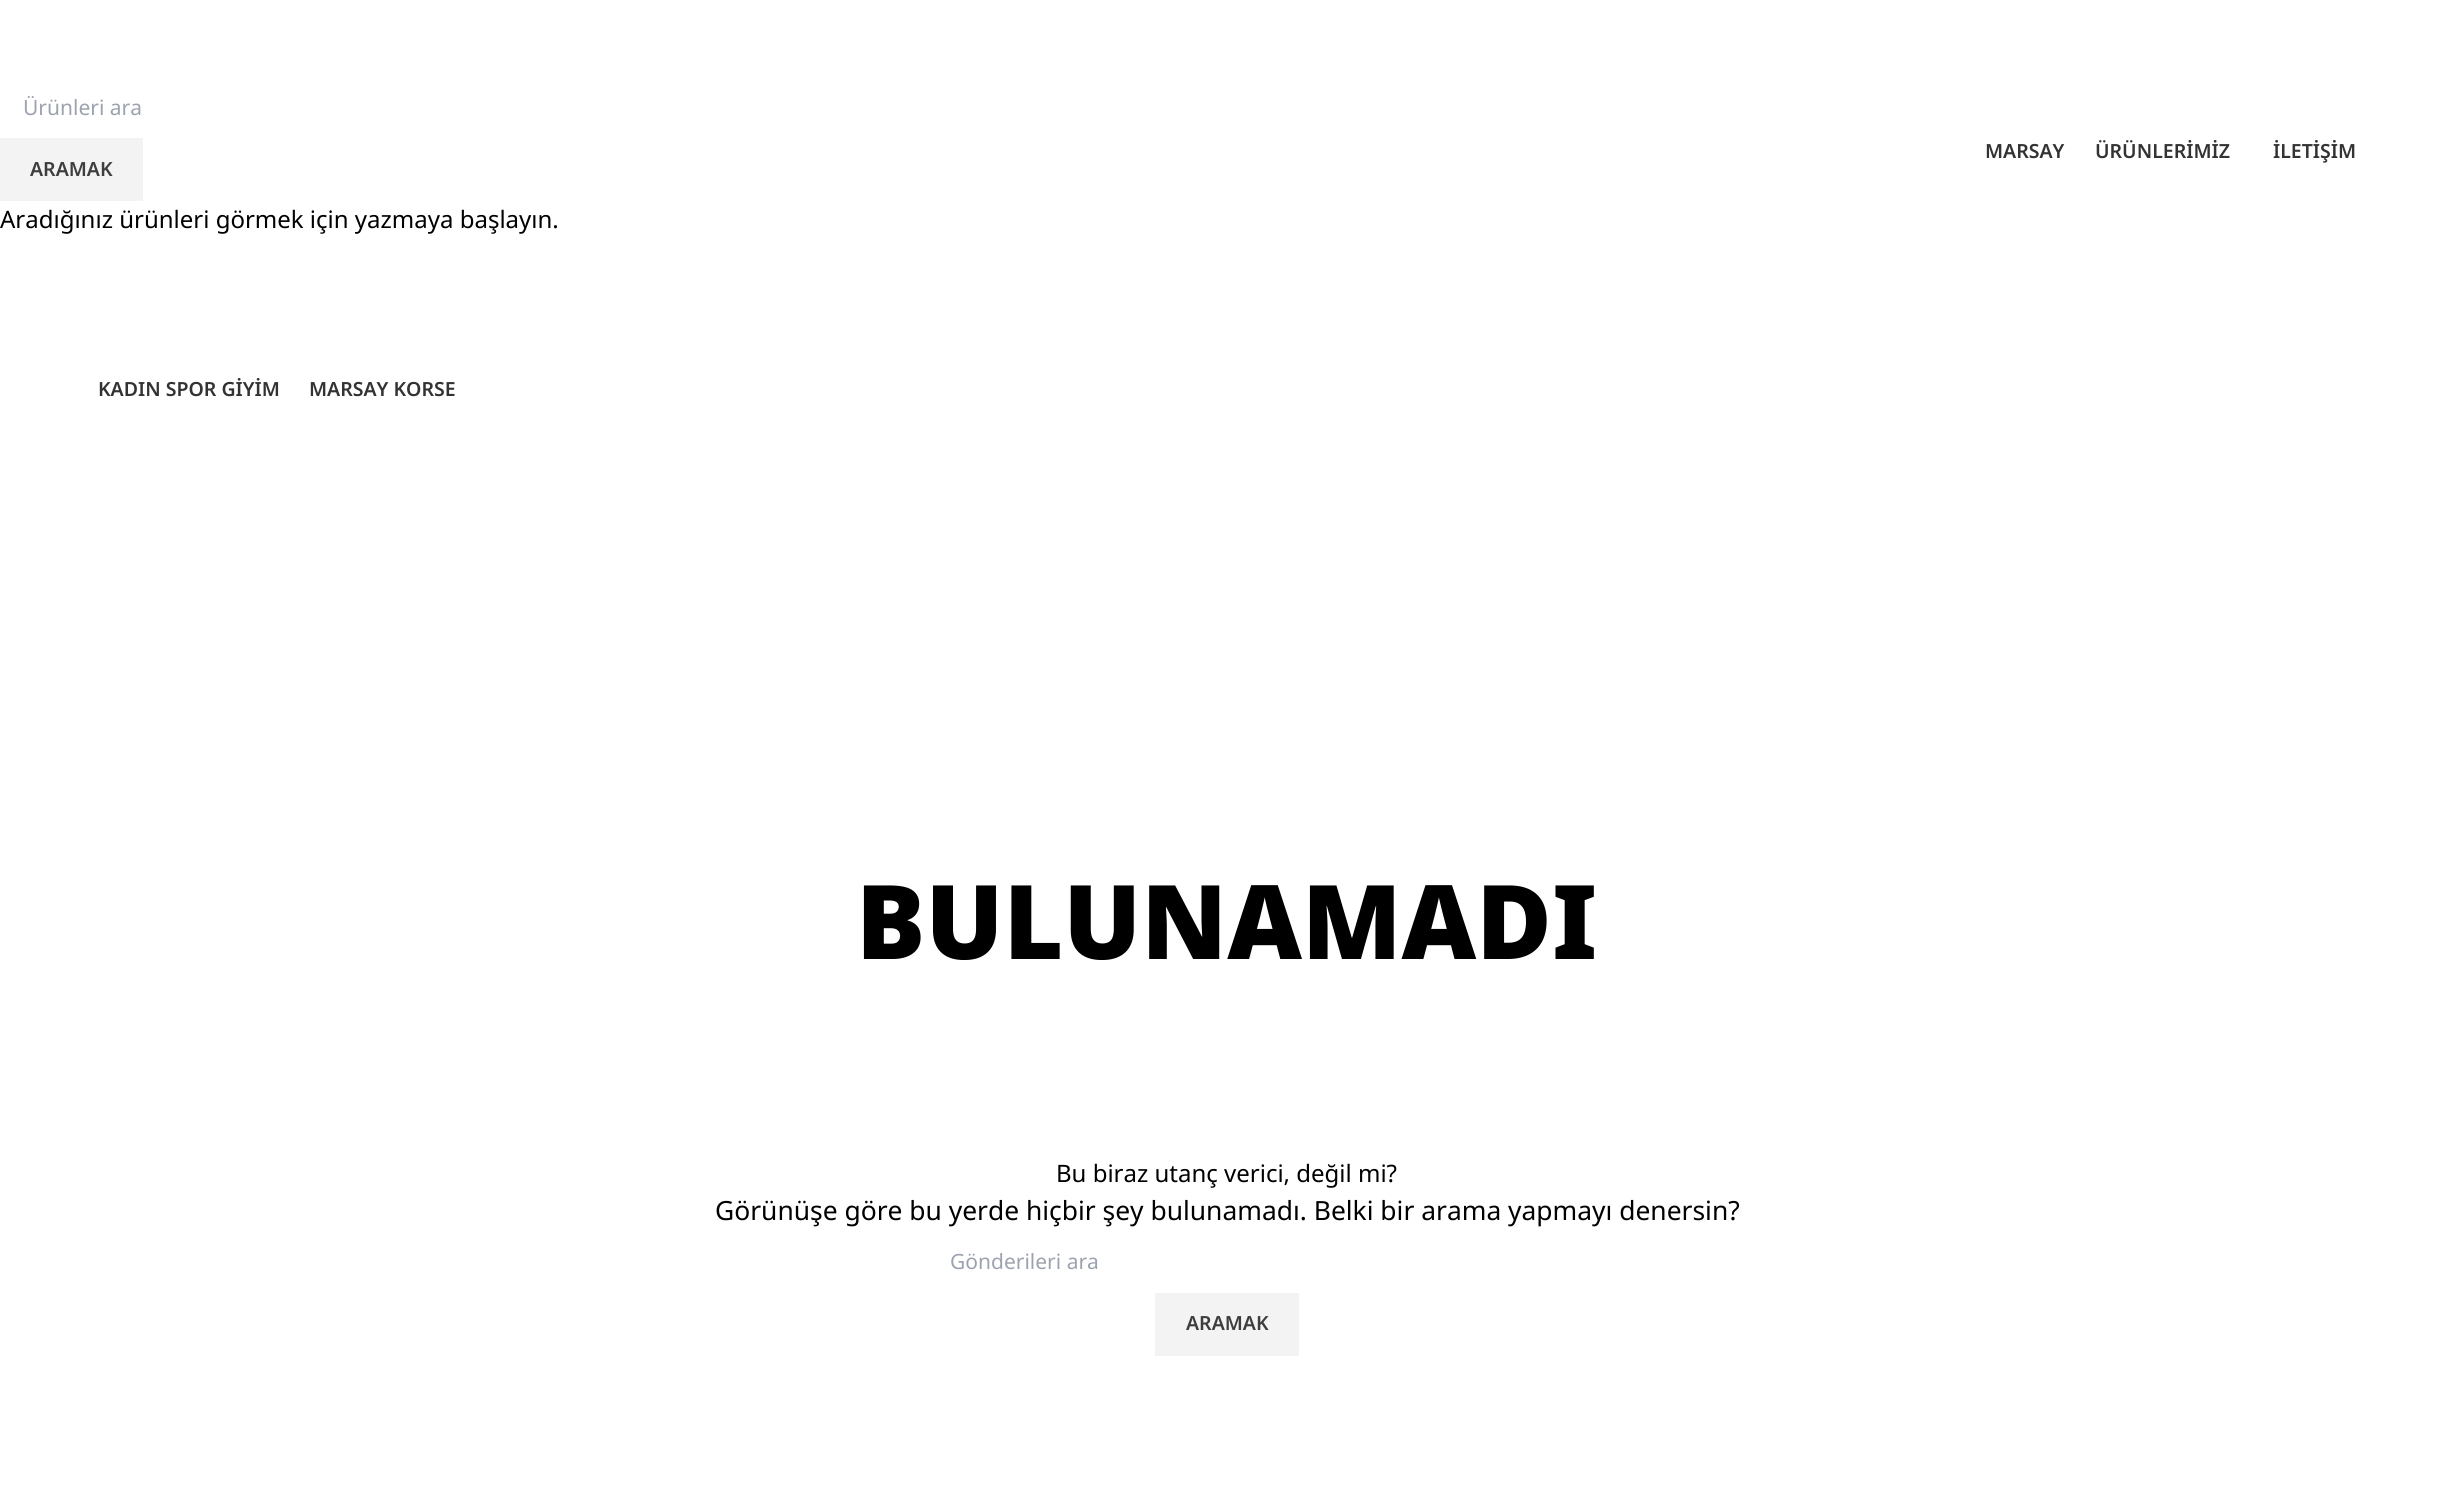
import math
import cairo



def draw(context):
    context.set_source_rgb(1, 1, 1)
    context.paint()
    context.set_source_rgb(243 / 255, 243 / 255, 243 / 255)
    context.rectangle(0, 138, 143, 63)
    context.fill()
    context.rectangle(1155, 1293, 144, 63)
    context.fill()
    context.select_font_face("Noto Sans")
    context.set_font_size(21)
    context.set_source_rgb(156 / 255, 163 / 255, 175 / 255)
    context.move_to(23, 115)
    context.show_text("Ürünleri ara")
    context.select_font_face("Noto Sans SemiBold")
    context.set_font_size(19.5)
    context.set_source_rgb(62 / 255, 62 / 255, 62 / 255)
    context.move_to(30, 176)
    context.show_text("ARAMAK")
    context.select_font_face("Noto Sans")
    context.set_font_size(24)
    context.set_source_rgb(0, 0, 0)
    context.move_to(0, 228)
    context.show_text("Aradığınız ürünleri görmek için yazmaya başlayın.")
    context.select_font_face("Noto Sans SemiBold")
    context.set_font_size(19.5)
    context.set_source_rgb(51 / 255, 51 / 255, 51 / 255)
    context.move_to(1985, 158)
    context.show_text("MARSAY")
    context.move_to(2095, 158)
    context.show_text("ÜRÜNLERİMİZ")
    context.move_to(2273, 158)
    context.show_text("İLETİŞİM")
    context.move_to(98, 396)
    context.show_text("KADIN SPOR GİYİM")
    context.move_to(309, 396)
    context.show_text("MARSAY KORSE")
    context.select_font_face("Noto Sans Black")
    context.set_font_size(103)
    context.set_source_rgb(0, 0, 0)
    context.move_to(856, 959)
    context.show_text("BULUNAMADI")
    context.select_font_face("Noto Sans")
    context.set_font_size(24)
    context.move_to(1056, 1182)
    context.show_text("Bu biraz utanç verici, değil mi?")
    context.set_font_size(26.4)
    context.move_to(715, 1220)
    context.show_text("Görünüşe göre bu yerde hiçbir şey bulunamadı. Belki bir arama yapmayı denersin?")
    context.set_font_size(21)
    context.set_source_rgb(156 / 255, 163 / 255, 175 / 255)
    context.move_to(950, 1269)
    context.show_text("Gönderileri ara")
    context.select_font_face("Noto Sans SemiBold")
    context.set_font_size(19.5)
    context.set_source_rgb(62 / 255, 62 / 255, 62 / 255)
    context.move_to(1186, 1330)
    context.show_text("ARAMAK")


surface = cairo.ImageSurface(cairo.Format.RGB24, 2454, 1504)
context = cairo.Context(surface)
options = cairo.FontOptions()
options.set_hint_metrics(cairo.HintMetrics.OFF)
options.set_hint_style(cairo.HintStyle.NONE)
context.set_font_options(options)
context.set_miter_limit(4)
draw(context)
surface.write_to_png("out.png")
